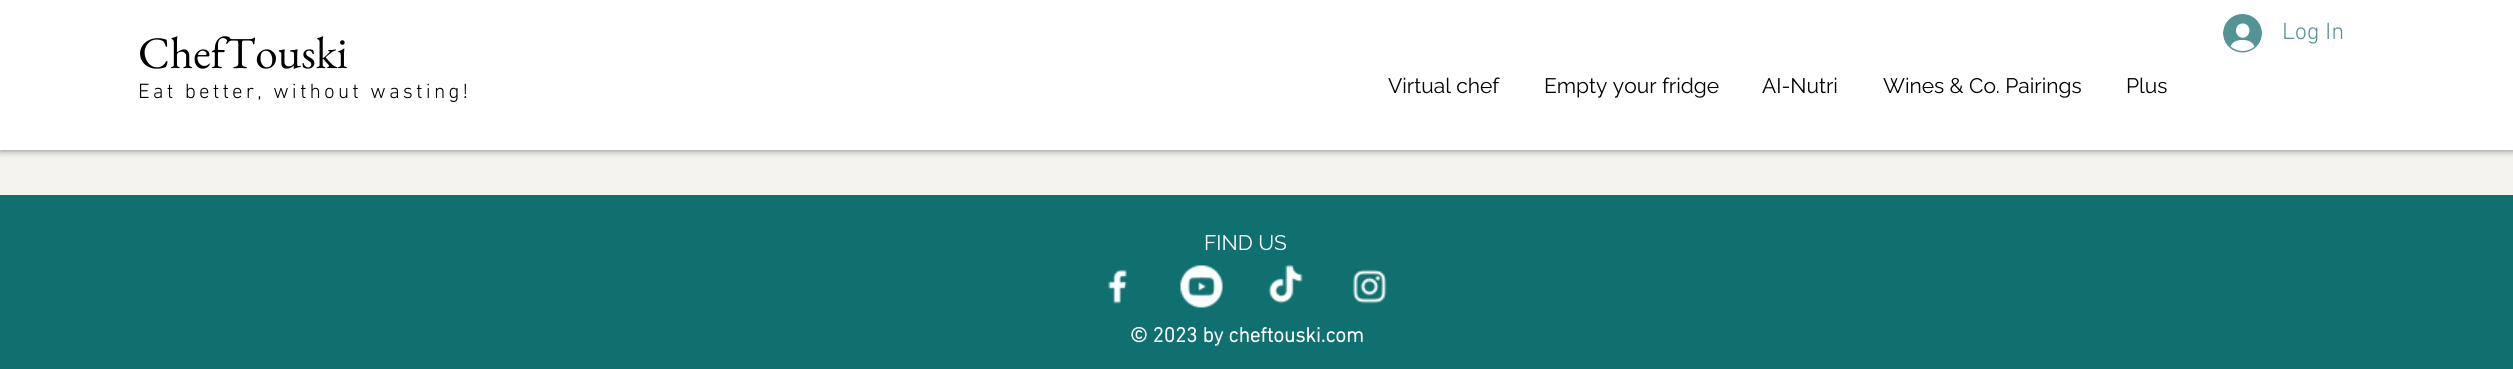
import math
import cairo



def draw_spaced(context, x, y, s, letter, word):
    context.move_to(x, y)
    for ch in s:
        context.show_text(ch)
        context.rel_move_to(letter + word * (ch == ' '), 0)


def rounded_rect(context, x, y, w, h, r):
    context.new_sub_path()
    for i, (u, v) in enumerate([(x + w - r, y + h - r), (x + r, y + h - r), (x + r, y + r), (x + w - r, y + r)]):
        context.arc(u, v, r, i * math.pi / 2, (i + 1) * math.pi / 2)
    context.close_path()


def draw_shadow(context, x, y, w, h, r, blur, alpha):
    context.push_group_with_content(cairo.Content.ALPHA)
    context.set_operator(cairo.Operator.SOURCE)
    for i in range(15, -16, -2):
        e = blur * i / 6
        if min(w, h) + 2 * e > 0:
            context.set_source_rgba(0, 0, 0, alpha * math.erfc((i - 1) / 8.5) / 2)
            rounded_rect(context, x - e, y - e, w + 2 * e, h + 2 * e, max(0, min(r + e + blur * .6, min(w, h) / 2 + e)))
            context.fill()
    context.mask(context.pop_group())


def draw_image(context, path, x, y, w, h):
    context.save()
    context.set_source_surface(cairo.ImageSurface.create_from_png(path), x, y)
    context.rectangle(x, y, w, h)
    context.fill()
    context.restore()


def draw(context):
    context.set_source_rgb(244 / 255, 243 / 255, 239 / 255)
    context.paint()
    context.set_source_rgb(0, 0, 0)
    draw_shadow(context, 0, 0, 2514, 150, 0, 4, 0.5)
    context.set_source_rgb(1, 1, 1)
    context.rectangle(0, 0, 2513, 150)
    context.fill()
    draw_image(context, "images/1.png", 2223, 14, 39, 39)
    context.set_source_rgb(16 / 255, 112 / 255, 112 / 255)
    context.rectangle(0, 195, 2513, 174)
    context.fill()
    draw_image(context, "images/2.png", 1108, 269, 19, 35)
    draw_image(context, "images/3.png", 1180, 265, 43, 43)
    draw_image(context, "images/4.png", 1268, 265, 35, 39)
    draw_image(context, "images/5.png", 1352, 269, 35, 35)
    context.select_font_face("EB Garamond")
    context.set_font_size(45)
    context.set_source_rgb(0, 0, 0)
    context.move_to(138, 68)
    context.show_text("ChefTouski")
    context.select_font_face("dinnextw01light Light")
    context.set_font_size(21)
    draw_spaced(context, 138, 98, "Eat better, without wasting!", 3.15, 0)
    context.set_font_size(24)
    context.set_source_rgb(84 / 255, 148 / 255, 148 / 255)
    context.move_to(2282, 39)
    context.show_text("Log In")
    context.select_font_face("Raleway")
    context.set_font_size(21)
    context.set_source_rgb(0, 0, 0)
    context.move_to(1388, 93)
    context.show_text("Virtual chef")
    context.move_to(1544, 93)
    context.show_text("Empty your fridge")
    context.move_to(1762, 93)
    context.show_text("AI-Nutri")
    context.move_to(1883, 93)
    context.show_text("Wines & Co. Pairings")
    context.move_to(2126, 93)
    context.show_text("Plus")
    context.set_source_rgb(1, 1, 1)
    context.move_to(1204, 250)
    context.show_text("FIND US")
    context.select_font_face("dinnextw01light", cairo.FontSlant.NORMAL, cairo.FontWeight.BOLD)
    context.move_to(1130, 342)
    context.show_text("© 2023 by cheftouski.com")


surface = cairo.ImageSurface(cairo.Format.RGB24, 2513, 369)
context = cairo.Context(surface)
options = cairo.FontOptions()
options.set_hint_metrics(cairo.HintMetrics.OFF)
options.set_hint_style(cairo.HintStyle.NONE)
context.set_font_options(options)
context.set_miter_limit(4)
draw(context)
surface.write_to_png("out.png")
